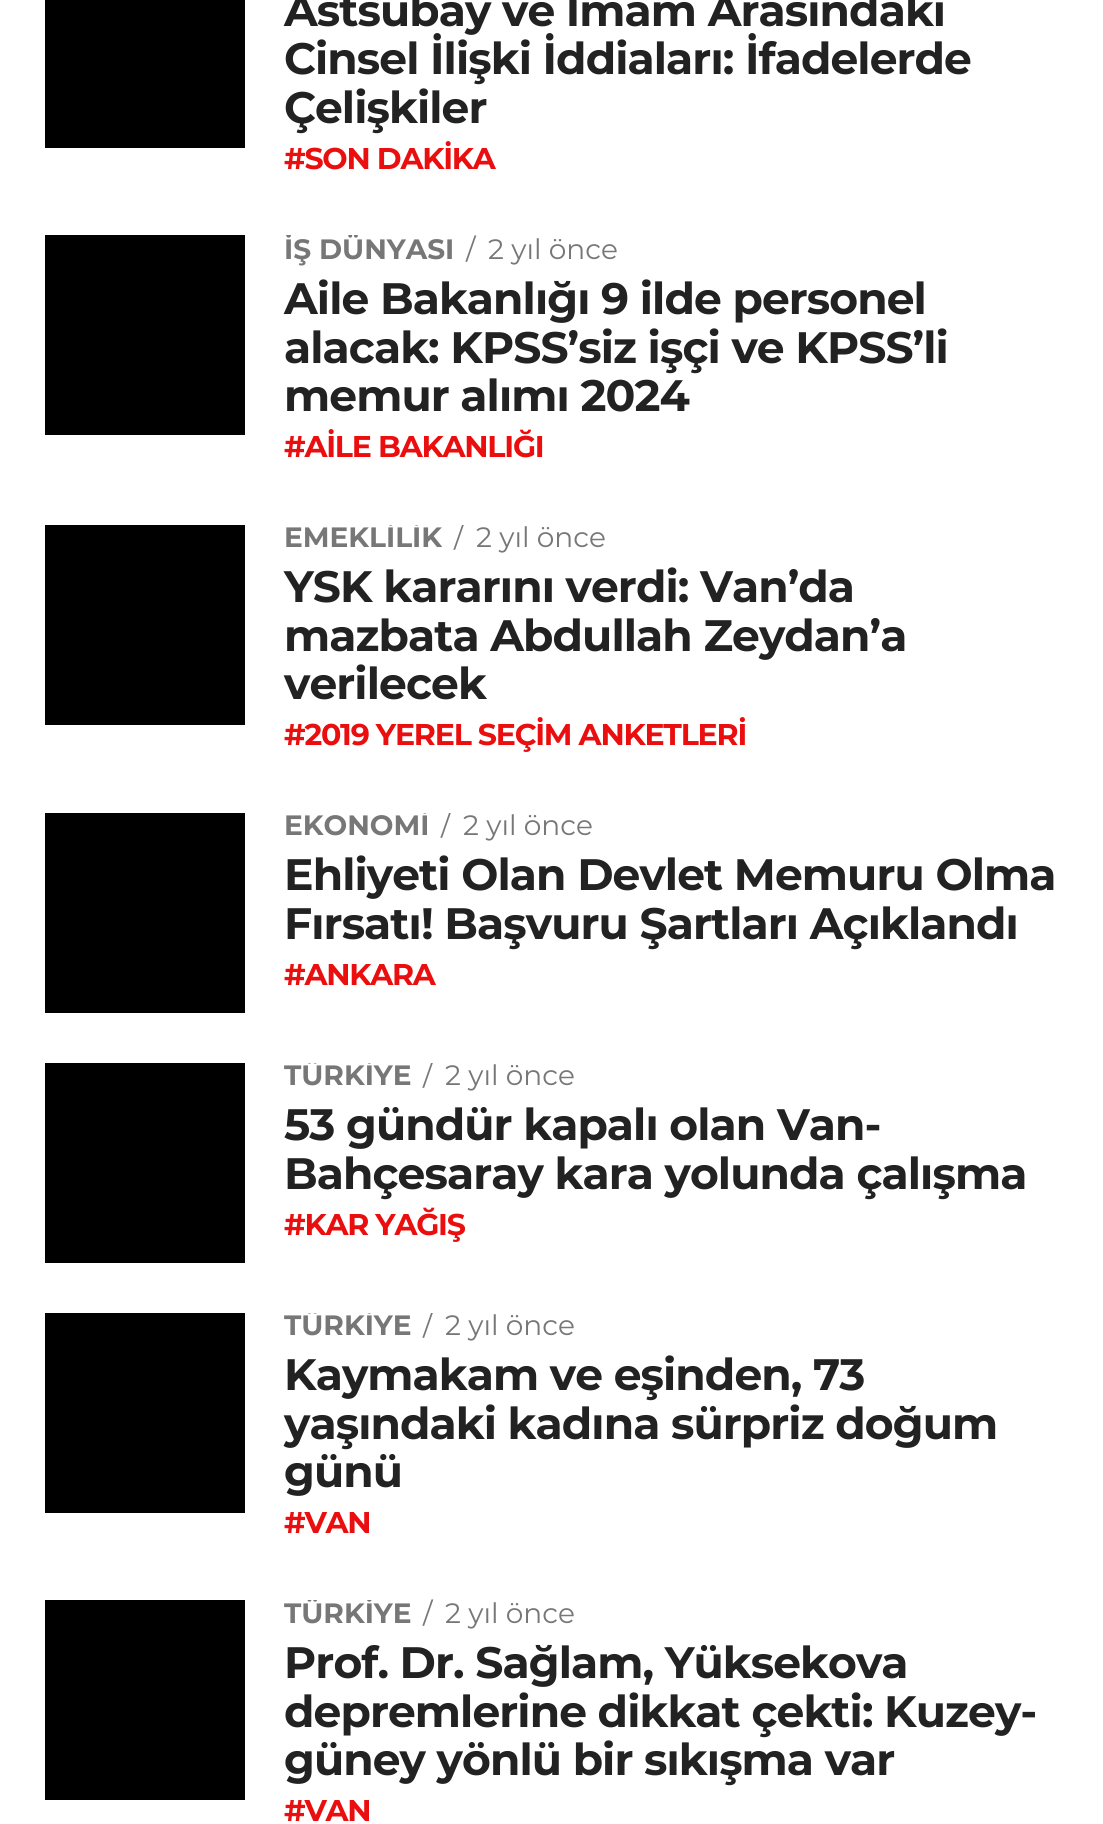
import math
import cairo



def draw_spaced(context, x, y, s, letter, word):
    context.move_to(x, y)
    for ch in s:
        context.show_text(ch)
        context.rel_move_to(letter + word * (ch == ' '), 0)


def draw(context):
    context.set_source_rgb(1, 1, 1)
    context.paint()
    context.set_source_rgb(0, 0, 0)
    context.rectangle(45, 0, 200, 148)
    context.fill()
    context.rectangle(45, 235, 200, 200)
    context.fill()
    context.rectangle(45, 525, 200, 200)
    context.fill()
    context.rectangle(45, 813, 200, 200)
    context.fill()
    context.rectangle(45, 1063, 200, 200)
    context.fill()
    context.rectangle(45, 1313, 200, 200)
    context.fill()
    context.rectangle(45, 1600, 200, 200)
    context.fill()
    context.select_font_face("Montserrat", cairo.FontSlant.NORMAL, cairo.FontWeight.BOLD)
    context.set_font_size(44)
    context.set_source_rgb(34 / 255, 34 / 255, 34 / 255)
    draw_spaced(context, 284, 26, "Astsubay ve İmam Arasındaki", -0.9, 0)
    draw_spaced(context, 284, 74, "Cinsel İlişki İddiaları: İfadelerde", -0.9, 0)
    draw_spaced(context, 284, 123, "Çelişkiler", -0.9, 0)
    context.set_font_size(30)
    context.set_source_rgb(234 / 255, 14 / 255, 14 / 255)
    draw_spaced(context, 284, 169, "#SON DAKİKA", -1.2, 0)
    context.save()
    context.rectangle(45, 235, 1015, 240)
    context.clip()
    context.set_font_size(28)
    context.set_source_rgb(119 / 255, 119 / 255, 119 / 255)
    context.move_to(284, 259)
    context.show_text("İŞ DÜNYASI")
    context.restore()
    context.select_font_face("Montserrat")
    context.set_font_size(28)
    context.set_source_rgb(119 / 255, 119 / 255, 119 / 255)
    context.move_to(466, 259)
    context.show_text("/")
    context.move_to(488, 259)
    context.show_text("2 yıl önce")
    context.select_font_face("Montserrat", cairo.FontSlant.NORMAL, cairo.FontWeight.BOLD)
    context.set_font_size(44)
    context.set_source_rgb(34 / 255, 34 / 255, 34 / 255)
    draw_spaced(context, 284, 314, "Aile Bakanlığı 9 ilde personel", -0.9, 0)
    draw_spaced(context, 284, 363, "alacak: KPSS’siz işçi ve KPSS’li", -0.9, 0)
    draw_spaced(context, 284, 411, "memur alımı 2024", -0.9, 0)
    context.set_font_size(30)
    context.set_source_rgb(234 / 255, 14 / 255, 14 / 255)
    draw_spaced(context, 284, 457, "#AİLE BAKANLIĞI", -1.2, 0)
    context.save()
    context.rectangle(45, 525, 1015, 238)
    context.clip()
    context.set_font_size(28)
    context.set_source_rgb(119 / 255, 119 / 255, 119 / 255)
    context.move_to(284, 547)
    context.show_text("EMEKLİLİK")
    context.select_font_face("Montserrat")
    context.move_to(454, 547)
    context.show_text("/")
    context.restore()
    context.select_font_face("Montserrat")
    context.set_font_size(28)
    context.set_source_rgb(119 / 255, 119 / 255, 119 / 255)
    context.move_to(476, 547)
    context.show_text("2 yıl önce")
    context.select_font_face("Montserrat", cairo.FontSlant.NORMAL, cairo.FontWeight.BOLD)
    context.set_font_size(44)
    context.set_source_rgb(34 / 255, 34 / 255, 34 / 255)
    draw_spaced(context, 284, 602, "YSK kararını verdi: Van’da", -0.9, 0)
    draw_spaced(context, 284, 651, "mazbata Abdullah Zeydan’a", -0.9, 0)
    draw_spaced(context, 284, 699, "verilecek", -0.9, 0)
    context.set_font_size(30)
    context.set_source_rgb(234 / 255, 14 / 255, 14 / 255)
    draw_spaced(context, 284, 745, "#2019 YEREL SEÇİM ANKETLERİ", -1.2, 0)
    context.save()
    context.rectangle(45, 813, 1015, 200)
    context.clip()
    context.set_font_size(28)
    context.set_source_rgb(119 / 255, 119 / 255, 119 / 255)
    context.move_to(284, 835)
    context.show_text("EKONOMİ")
    context.select_font_face("Montserrat")
    context.move_to(441, 835)
    context.show_text("/")
    context.restore()
    context.select_font_face("Montserrat")
    context.set_font_size(28)
    context.set_source_rgb(119 / 255, 119 / 255, 119 / 255)
    context.move_to(463, 835)
    context.show_text("2 yıl önce")
    context.select_font_face("Montserrat", cairo.FontSlant.NORMAL, cairo.FontWeight.BOLD)
    context.set_font_size(44)
    context.set_source_rgb(34 / 255, 34 / 255, 34 / 255)
    draw_spaced(context, 284, 890, "Ehliyeti Olan Devlet Memuru Olma", -0.9, 0)
    draw_spaced(context, 284, 939, "Fırsatı! Başvuru Şartları Açıklandı", -0.9, 0)
    context.set_font_size(30)
    context.set_source_rgb(234 / 255, 14 / 255, 14 / 255)
    draw_spaced(context, 284, 985, "#ANKARA", -1.2, 0)
    context.save()
    context.rectangle(45, 1063, 1015, 200)
    context.clip()
    context.set_font_size(28)
    context.set_source_rgb(119 / 255, 119 / 255, 119 / 255)
    context.move_to(284, 1085)
    context.show_text("TÜRKİYE")
    context.select_font_face("Montserrat")
    context.move_to(423, 1085)
    context.show_text("/")
    context.restore()
    context.select_font_face("Montserrat")
    context.set_font_size(28)
    context.set_source_rgb(119 / 255, 119 / 255, 119 / 255)
    context.move_to(445, 1085)
    context.show_text("2 yıl önce")
    context.select_font_face("Montserrat", cairo.FontSlant.NORMAL, cairo.FontWeight.BOLD)
    context.set_font_size(44)
    context.set_source_rgb(34 / 255, 34 / 255, 34 / 255)
    draw_spaced(context, 284, 1140, "53 gündür kapalı olan Van-", -0.9, 0)
    draw_spaced(context, 284, 1189, "Bahçesaray kara yolunda çalışma", -0.9, 0)
    context.set_font_size(30)
    context.set_source_rgb(234 / 255, 14 / 255, 14 / 255)
    draw_spaced(context, 284, 1235, "#KAR YAĞIŞ", -1.2, 0)
    context.save()
    context.rectangle(45, 1313, 1015, 237)
    context.clip()
    context.set_font_size(28)
    context.set_source_rgb(119 / 255, 119 / 255, 119 / 255)
    context.move_to(284, 1335)
    context.show_text("TÜRKİYE")
    context.select_font_face("Montserrat")
    context.move_to(423, 1335)
    context.show_text("/")
    context.restore()
    context.select_font_face("Montserrat")
    context.set_font_size(28)
    context.set_source_rgb(119 / 255, 119 / 255, 119 / 255)
    context.move_to(445, 1335)
    context.show_text("2 yıl önce")
    context.select_font_face("Montserrat", cairo.FontSlant.NORMAL, cairo.FontWeight.BOLD)
    context.set_font_size(44)
    context.set_source_rgb(34 / 255, 34 / 255, 34 / 255)
    draw_spaced(context, 284, 1390, "Kaymakam ve eşinden, 73", -0.9, 0)
    draw_spaced(context, 284, 1439, "yaşındaki kadına sürpriz doğum", -0.9, 0)
    draw_spaced(context, 284, 1487, "günü", -0.9, 0)
    context.set_font_size(30)
    context.set_source_rgb(234 / 255, 14 / 255, 14 / 255)
    draw_spaced(context, 284, 1533, "#VAN", -1.2, 0)
    context.save()
    context.rectangle(45, 1600, 1015, 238)
    context.clip()
    context.set_font_size(28)
    context.set_source_rgb(119 / 255, 119 / 255, 119 / 255)
    context.move_to(284, 1623)
    context.show_text("TÜRKİYE")
    context.restore()
    context.select_font_face("Montserrat")
    context.set_font_size(28)
    context.set_source_rgb(119 / 255, 119 / 255, 119 / 255)
    context.move_to(423, 1623)
    context.show_text("/")
    context.move_to(445, 1623)
    context.show_text("2 yıl önce")
    context.select_font_face("Montserrat", cairo.FontSlant.NORMAL, cairo.FontWeight.BOLD)
    context.set_font_size(44)
    context.set_source_rgb(34 / 255, 34 / 255, 34 / 255)
    draw_spaced(context, 284, 1678, "Prof. Dr. Sağlam, Yüksekova", -0.9, 0)
    draw_spaced(context, 284, 1727, "depremlerine dikkat çekti: Kuzey-", -0.9, 0)
    draw_spaced(context, 284, 1775, "güney yönlü bir sıkışma var", -0.9, 0)
    context.set_font_size(30)
    context.set_source_rgb(234 / 255, 14 / 255, 14 / 255)
    draw_spaced(context, 284, 1821, "#VAN", -1.2, 0)


surface = cairo.ImageSurface(cairo.Format.RGB24, 1103, 1824)
context = cairo.Context(surface)
options = cairo.FontOptions()
options.set_hint_metrics(cairo.HintMetrics.OFF)
options.set_hint_style(cairo.HintStyle.NONE)
context.set_font_options(options)
context.set_miter_limit(4)
draw(context)
surface.write_to_png("out.png")
